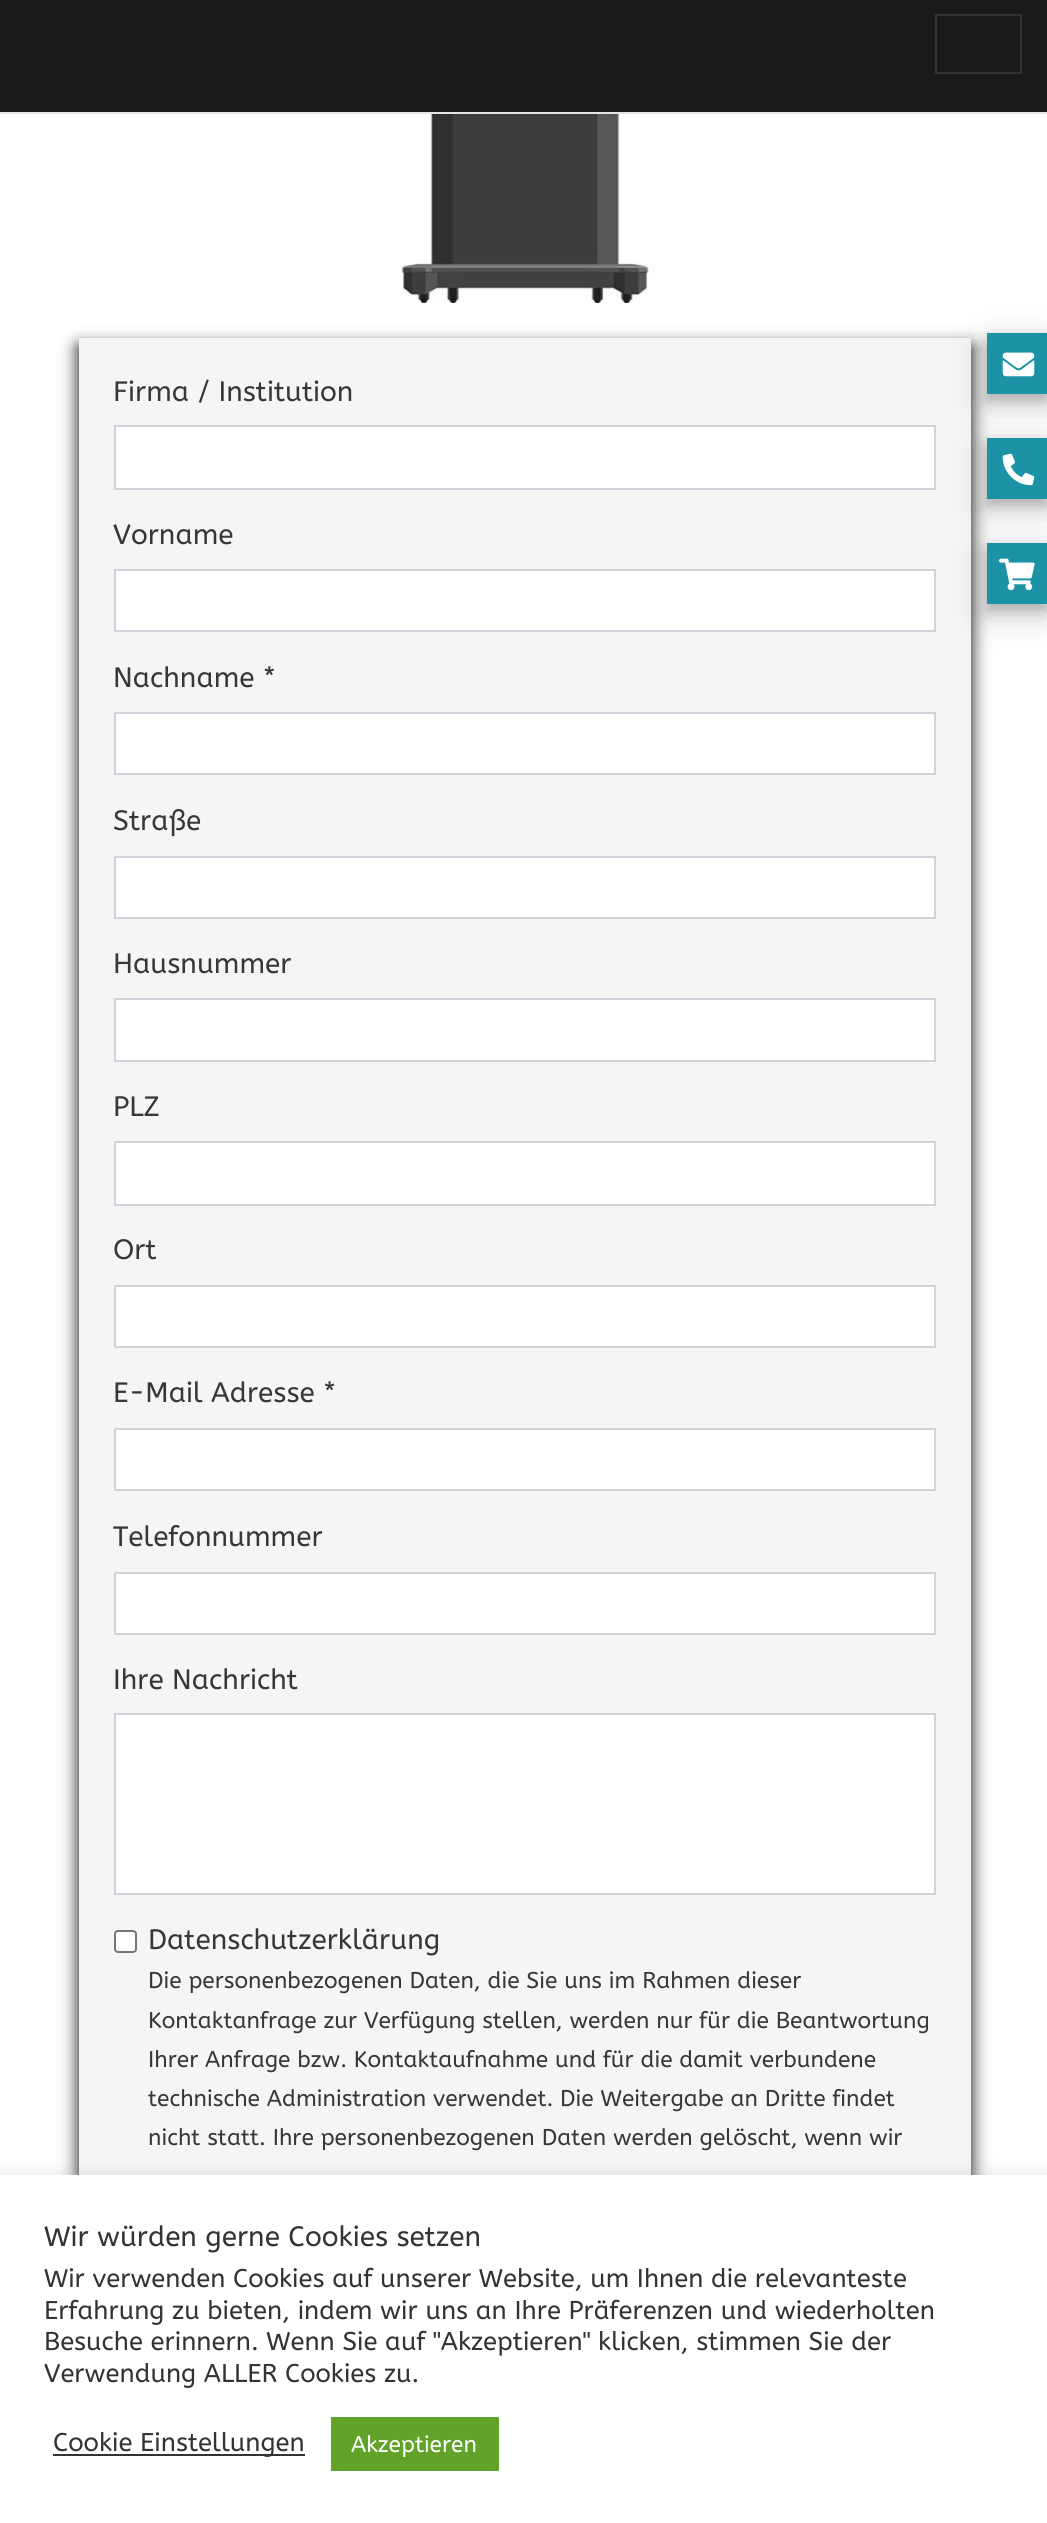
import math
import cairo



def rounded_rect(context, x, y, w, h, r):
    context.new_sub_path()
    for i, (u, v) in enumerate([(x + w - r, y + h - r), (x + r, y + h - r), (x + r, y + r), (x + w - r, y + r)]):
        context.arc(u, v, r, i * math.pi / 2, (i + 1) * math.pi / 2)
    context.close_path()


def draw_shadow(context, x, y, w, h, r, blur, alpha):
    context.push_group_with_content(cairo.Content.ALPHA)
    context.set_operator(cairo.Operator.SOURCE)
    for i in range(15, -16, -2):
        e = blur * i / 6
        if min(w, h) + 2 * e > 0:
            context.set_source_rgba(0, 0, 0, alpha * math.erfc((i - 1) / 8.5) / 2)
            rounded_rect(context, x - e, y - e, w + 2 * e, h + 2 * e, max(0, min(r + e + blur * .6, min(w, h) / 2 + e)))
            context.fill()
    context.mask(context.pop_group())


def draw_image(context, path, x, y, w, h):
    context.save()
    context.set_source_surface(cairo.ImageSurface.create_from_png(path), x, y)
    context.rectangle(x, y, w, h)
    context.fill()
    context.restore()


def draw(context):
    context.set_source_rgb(1, 1, 1)
    context.paint()
    context.set_source_rgb(26 / 255, 26 / 255, 26 / 255)
    context.rectangle(0, 0, 1047, 112)
    context.fill()
    context.set_source_rgb(229 / 255, 229 / 255, 229 / 255)
    context.rectangle(0, 112, 1047, 2)
    context.fill()
    context.rectangle(936, 15, 85, 58)
    context.set_source_rgb(49 / 255, 49 / 255, 49 / 255)
    context.stroke()
    draw_image(context, "images/1.png", 377, 114, 296, 189)
    context.set_source_rgb(0, 0, 0)
    draw_shadow(context, 79, 347, 892, 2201, 0, 9, 1)
    context.set_source_rgb(245 / 255, 245 / 255, 245 / 255)
    context.rectangle(79, 338, 892, 1837)
    context.fill()
    context.set_source_rgb(1, 1, 1)
    context.rectangle(115, 426, 820, 63)
    context.fill_preserve()
    context.set_source_rgb(206 / 255, 212 / 255, 218 / 255)
    context.stroke()
    context.set_source_rgb(1, 1, 1)
    context.rectangle(115, 570, 820, 61)
    context.fill_preserve()
    context.set_source_rgb(206 / 255, 212 / 255, 218 / 255)
    context.stroke()
    context.set_source_rgb(1, 1, 1)
    context.rectangle(115, 713, 820, 61)
    context.fill_preserve()
    context.set_source_rgb(206 / 255, 212 / 255, 218 / 255)
    context.stroke()
    context.set_source_rgb(1, 1, 1)
    context.rectangle(115, 857, 820, 61)
    context.fill_preserve()
    context.set_source_rgb(206 / 255, 212 / 255, 218 / 255)
    context.stroke()
    context.set_source_rgb(1, 1, 1)
    context.rectangle(115, 999, 820, 62)
    context.fill_preserve()
    context.set_source_rgb(206 / 255, 212 / 255, 218 / 255)
    context.stroke()
    context.set_source_rgb(1, 1, 1)
    context.rectangle(115, 1142, 820, 63)
    context.fill_preserve()
    context.set_source_rgb(206 / 255, 212 / 255, 218 / 255)
    context.stroke()
    context.set_source_rgb(1, 1, 1)
    context.rectangle(115, 1286, 820, 61)
    context.fill_preserve()
    context.set_source_rgb(206 / 255, 212 / 255, 218 / 255)
    context.stroke()
    context.set_source_rgb(1, 1, 1)
    context.rectangle(115, 1429, 820, 61)
    context.fill_preserve()
    context.set_source_rgb(206 / 255, 212 / 255, 218 / 255)
    context.stroke()
    context.set_source_rgb(1, 1, 1)
    context.rectangle(115, 1573, 820, 61)
    context.fill_preserve()
    context.set_source_rgb(206 / 255, 212 / 255, 218 / 255)
    context.stroke()
    context.set_source_rgb(1, 1, 1)
    context.rectangle(115, 1714, 820, 180)
    context.fill_preserve()
    context.set_source_rgb(206 / 255, 212 / 255, 218 / 255)
    context.stroke()
    context.set_source_rgb(1, 1, 1)
    rounded_rect(context, 115, 1931, 21, 21, 3)
    context.fill_preserve()
    context.set_source_rgb(118 / 255, 118 / 255, 118 / 255)
    context.stroke()
    context.set_source_rgb(0, 0, 0)
    draw_shadow(context, 987, 343, 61, 61, 0, 17.5, 0.19)
    draw_shadow(context, 987, 340, 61, 61, 0, 7, 0.2)
    context.set_source_rgb(28 / 255, 146 / 255, 167 / 255)
    context.rectangle(987, 333, 60, 61)
    context.fill()
    draw_image(context, "images/2.png", 1002, 352, 33, 25)
    context.set_source_rgb(0, 0, 0)
    draw_shadow(context, 987, 448, 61, 61, 0, 17.5, 0.19)
    draw_shadow(context, 987, 445, 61, 61, 0, 7, 0.2)
    context.set_source_rgb(28 / 255, 146 / 255, 167 / 255)
    context.rectangle(987, 438, 60, 61)
    context.fill()
    draw_image(context, "images/3.png", 1002, 453, 33, 33)
    context.set_source_rgb(0, 0, 0)
    draw_shadow(context, 987, 553, 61, 61, 0, 17.5, 0.19)
    draw_shadow(context, 987, 550, 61, 61, 0, 7, 0.2)
    context.set_source_rgb(28 / 255, 146 / 255, 167 / 255)
    context.rectangle(987, 543, 60, 61)
    context.fill()
    draw_image(context, "images/4.png", 999, 558, 36, 33)
    context.set_source_rgb(172 / 255, 171 / 255, 171 / 255)
    draw_shadow(context, 0, 2174, 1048, 348, 0, 9, 0.3)
    context.set_source_rgb(1, 1, 1)
    context.rectangle(0, 2175, 1047, 348)
    context.fill()
    context.set_source_rgb(51 / 255, 51 / 255, 51 / 255)
    context.rectangle(53, 2454, 252, 2)
    context.fill()
    context.set_source_rgb(97 / 255, 162 / 255, 41 / 255)
    context.rectangle(331, 2417, 168, 54)
    context.fill()
    context.select_font_face("ABeeZee")
    context.set_font_size(28)
    context.set_source_rgb(54 / 255, 55 / 255, 59 / 255)
    context.move_to(113, 401)
    context.show_text("Firma / Institution")
    context.move_to(113, 544)
    context.show_text("Vorname")
    context.move_to(113, 687)
    context.show_text("Nachname *")
    context.move_to(113, 830)
    context.show_text("Straße")
    context.move_to(113, 973)
    context.show_text("Hausnummer")
    context.move_to(113, 1116)
    context.show_text("PLZ")
    context.move_to(113, 1259)
    context.show_text("Ort")
    context.move_to(113, 1402)
    context.show_text("E-Mail Adresse *")
    context.move_to(113, 1546)
    context.show_text("Telefonnummer")
    context.move_to(113, 1689)
    context.show_text("Ihre Nachricht")
    context.move_to(148, 1949)
    context.show_text("Datenschutzerklärung")
    context.set_font_size(22.75)
    context.move_to(148, 1988)
    context.show_text("Die personenbezogenen Daten, die Sie uns im Rahmen dieser")
    context.move_to(148, 2028)
    context.show_text("Kontaktanfrage zur Verfügung stellen, werden nur für die Beantwortung")
    context.move_to(148, 2067)
    context.show_text("Ihrer Anfrage bzw. Kontaktaufnahme und für die damit verbundene")
    context.move_to(148, 2106)
    context.show_text("technische Administration verwendet. Die Weitergabe an Dritte findet")
    context.move_to(148, 2145)
    context.show_text("nicht statt. Ihre personenbezogenen Daten werden gelöscht, wenn wir")
    context.set_font_size(28)
    context.set_source_rgb(51 / 255, 51 / 255, 51 / 255)
    context.move_to(44, 2246)
    context.show_text("Wir würden gerne Cookies setzen")
    context.set_font_size(25.65)
    context.move_to(44, 2287)
    context.show_text("Wir verwenden Cookies auf unserer Website, um Ihnen die relevanteste")
    context.move_to(44, 2319)
    context.show_text("Erfahrung zu bieten, indem wir uns an Ihre Präferenzen und wiederholten")
    context.move_to(44, 2350)
    context.show_text("Besuche erinnern. Wenn Sie auf \"Akzeptieren\" klicken, stimmen Sie der")
    context.move_to(44, 2382)
    context.show_text("Verwendung ALLER Cookies zu.")
    context.move_to(53, 2451)
    context.show_text("Cookie Einstellungen")
    context.set_font_size(22.75)
    context.set_source_rgb(1, 1, 1)
    context.move_to(351, 2452)
    context.show_text("Akzeptieren")


surface = cairo.ImageSurface(cairo.Format.RGB24, 1047, 2523)
context = cairo.Context(surface)
options = cairo.FontOptions()
options.set_hint_metrics(cairo.HintMetrics.OFF)
options.set_hint_style(cairo.HintStyle.NONE)
context.set_font_options(options)
context.set_miter_limit(4)
draw(context)
surface.write_to_png("out.png")
